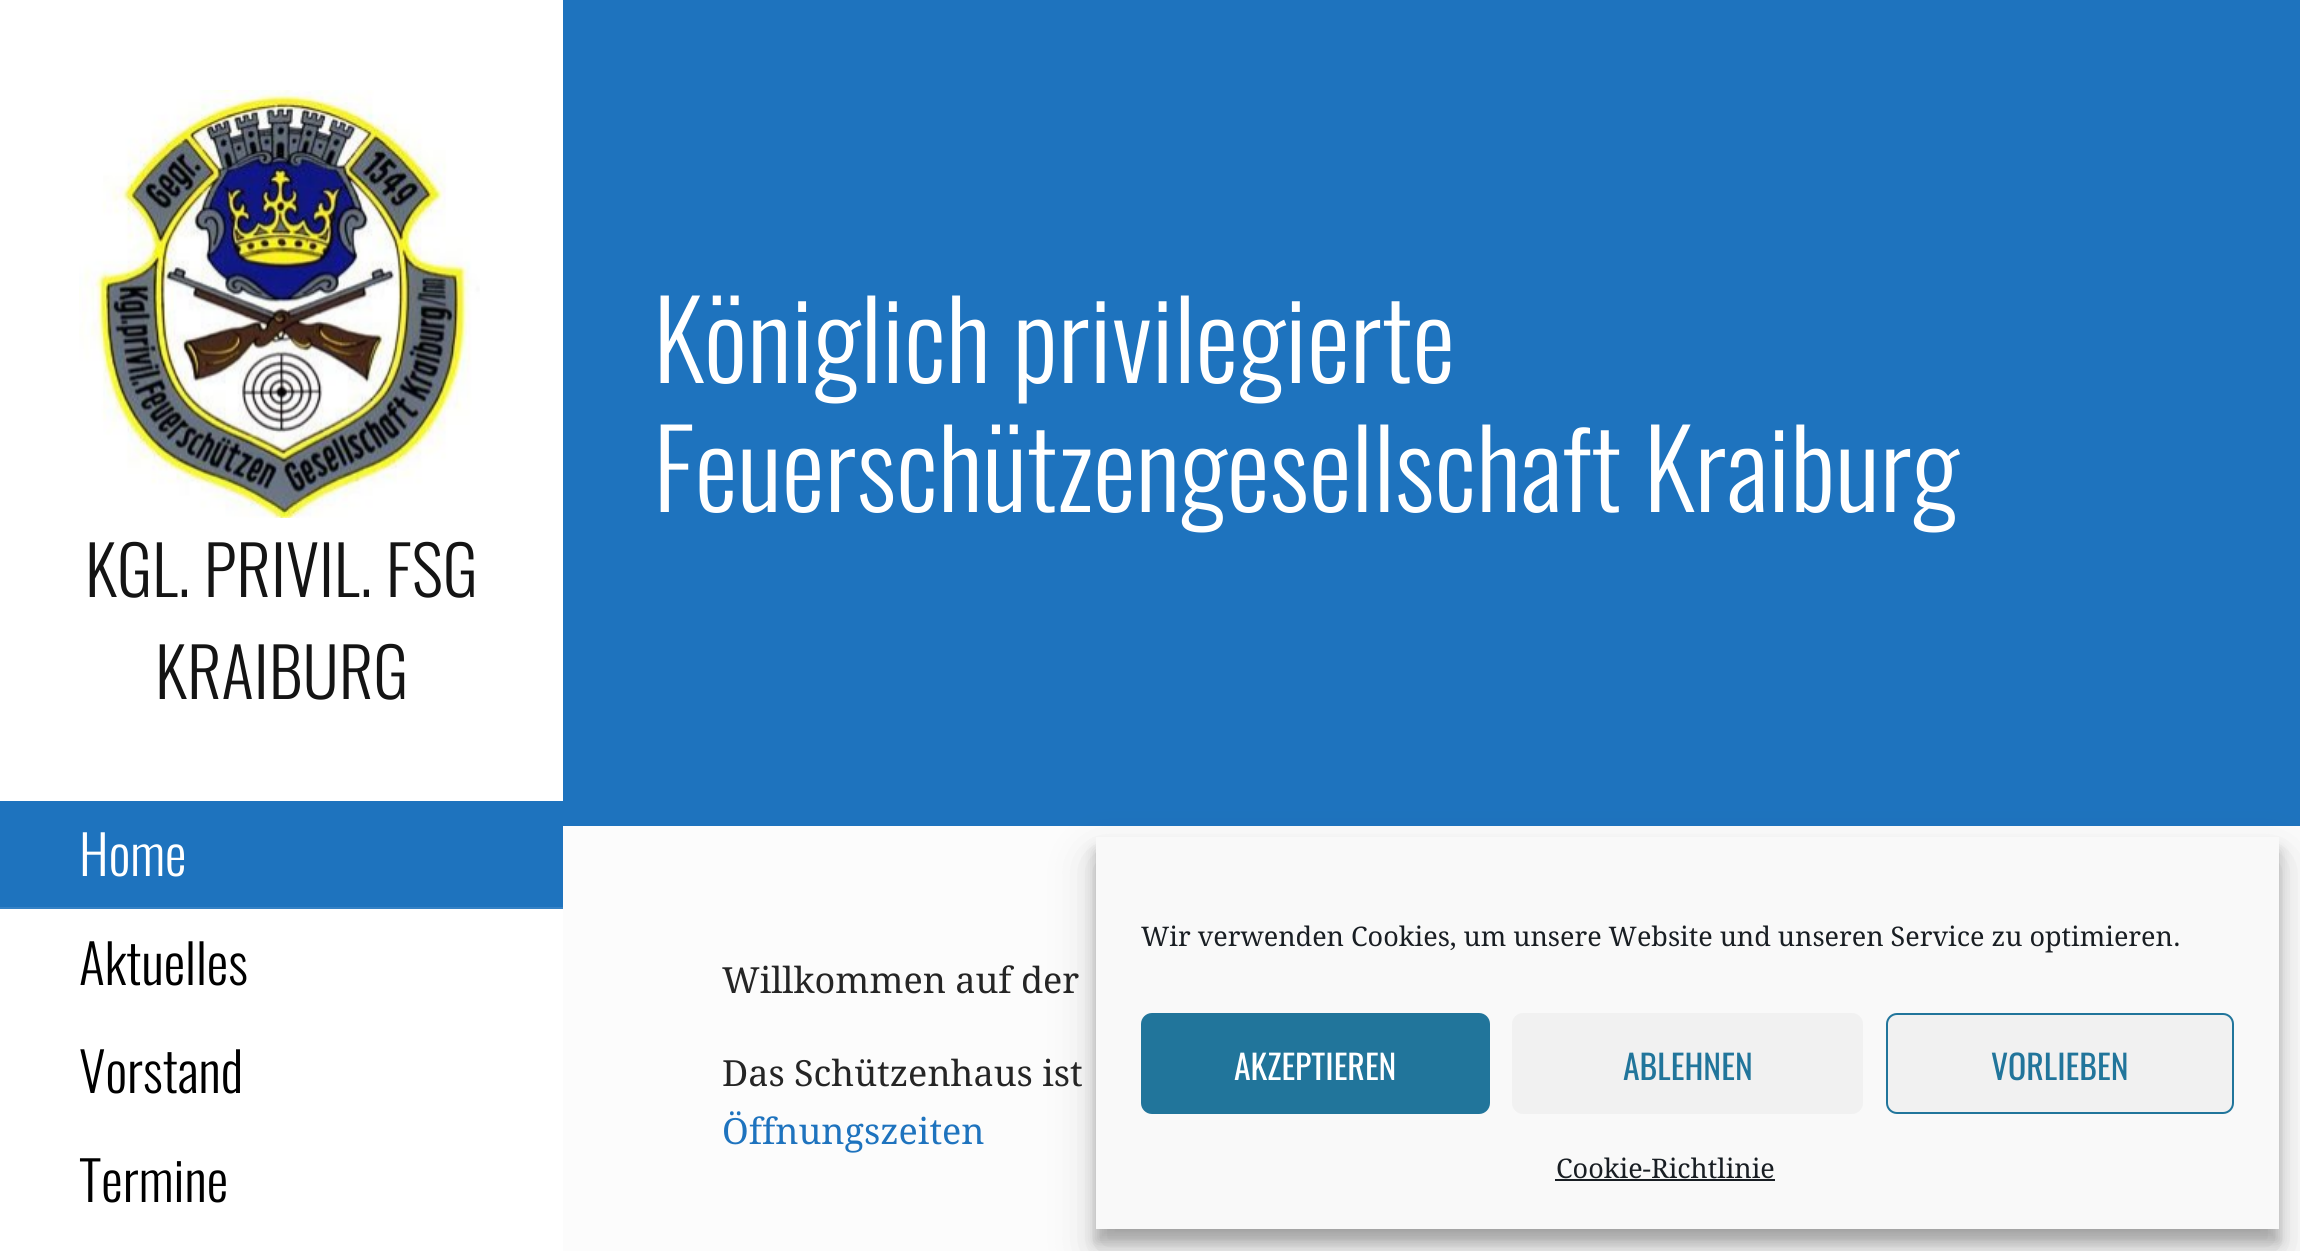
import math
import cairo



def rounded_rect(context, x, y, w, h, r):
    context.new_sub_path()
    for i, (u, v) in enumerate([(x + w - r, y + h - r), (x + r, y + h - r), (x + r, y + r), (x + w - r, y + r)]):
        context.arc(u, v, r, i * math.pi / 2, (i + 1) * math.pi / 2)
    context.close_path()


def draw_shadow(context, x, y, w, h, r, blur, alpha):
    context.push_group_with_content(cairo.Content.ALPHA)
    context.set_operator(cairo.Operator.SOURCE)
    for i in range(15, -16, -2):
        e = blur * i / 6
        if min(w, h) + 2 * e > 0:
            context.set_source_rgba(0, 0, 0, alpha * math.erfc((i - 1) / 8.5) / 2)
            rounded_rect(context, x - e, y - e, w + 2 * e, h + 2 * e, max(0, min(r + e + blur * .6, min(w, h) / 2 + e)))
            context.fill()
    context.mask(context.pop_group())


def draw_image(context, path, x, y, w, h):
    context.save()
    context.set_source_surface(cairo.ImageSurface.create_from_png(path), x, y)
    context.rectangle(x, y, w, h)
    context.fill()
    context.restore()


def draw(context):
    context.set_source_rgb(252 / 255, 252 / 255, 252 / 255)
    context.paint()
    context.set_source_rgb(30 / 255, 115 / 255, 190 / 255)
    context.rectangle(563, 0, 1737, 826)
    context.fill()
    context.set_source_rgb(1, 1, 1)
    context.rectangle(0, 0, 563, 1251)
    context.fill()
    draw_image(context, "images/1.png", 79, 90, 401, 428)
    context.set_source_rgb(30 / 255, 115 / 255, 190 / 255)
    context.rectangle(0, 801, 563, 106)
    context.fill()
    context.set_source_rgb(53 / 255, 129 / 255, 197 / 255)
    context.rectangle(0, 907, 563, 2)
    context.fill()
    context.set_source_rgb(0, 0, 0)
    draw_shadow(context, 1096, 851, 1183, 391, 0, 7, 0.23)
    draw_shadow(context, 1096, 860, 1183, 391, 0, 22.5, 0.19)
    context.set_source_rgb(249 / 255, 249 / 255, 249 / 255)
    context.rectangle(1096, 837, 1183, 392)
    context.fill()
    context.set_source_rgb(33 / 255, 117 / 255, 155 / 255)
    rounded_rect(context, 1142, 1014, 347, 99, 10)
    context.fill_preserve()
    context.stroke()
    context.set_source_rgb(241 / 255, 241 / 255, 241 / 255)
    rounded_rect(context, 1512, 1013, 351, 101, 11)
    context.fill()
    rounded_rect(context, 1887, 1014, 346, 99, 10)
    context.fill_preserve()
    context.set_source_rgb(33 / 255, 117 / 255, 155 / 255)
    context.stroke()
    context.set_source_rgb(25 / 255, 30 / 255, 35 / 255)
    context.rectangle(1555, 1179, 220, 2)
    context.fill()
    context.select_font_face("Oswald Light")
    context.set_font_size(108)
    context.set_source_rgb(1, 1, 1)
    context.move_to(653, 383)
    context.show_text("Königlich privilegierte")
    context.move_to(653, 512)
    context.show_text("Feuerschützengesellschaft Kraiburg")
    context.set_font_size(67.5)
    context.set_source_rgb(20 / 255, 20 / 255, 20 / 255)
    context.move_to(85, 597)
    context.show_text("KGL. PRIVIL. FSG")
    context.move_to(155, 699)
    context.show_text("KRAIBURG")
    context.set_font_size(54)
    context.set_source_rgb(1, 1, 1)
    context.move_to(79, 876)
    context.show_text("Home")
    context.set_source_rgb(0, 0, 0)
    context.move_to(79, 985)
    context.show_text("Aktuelles")
    context.move_to(79, 1093)
    context.show_text("Vorstand")
    context.move_to(79, 1202)
    context.show_text("Termine")
    context.select_font_face("Droid Serif")
    context.set_font_size(36)
    context.set_source_rgb(37 / 255, 37 / 255, 37 / 255)
    context.move_to(722, 993)
    context.show_text("Willkommen auf der")
    context.move_to(722, 1086)
    context.show_text("Das Schützenhaus ist")
    context.set_source_rgb(30 / 255, 115 / 255, 190 / 255)
    context.move_to(722, 1144)
    context.show_text("Öffnungszeiten")
    context.set_font_size(27)
    context.set_source_rgb(25 / 255, 30 / 255, 35 / 255)
    context.move_to(1141, 946)
    context.show_text("Wir verwenden Cookies, um unsere Website und unseren Service zu optimieren.")
    context.select_font_face("Oswald")
    context.set_font_size(33.75)
    context.set_source_rgb(1, 1, 1)
    context.move_to(1234, 1080)
    context.show_text("AKZEPTIEREN")
    context.set_source_rgb(33 / 255, 117 / 255, 155 / 255)
    context.move_to(1623, 1080)
    context.show_text("ABLEHNEN")
    context.move_to(1991, 1080)
    context.show_text("VORLIEBEN")
    context.select_font_face("Droid Serif")
    context.set_font_size(27)
    context.set_source_rgb(25 / 255, 30 / 255, 35 / 255)
    context.move_to(1556, 1178)
    context.show_text("Cookie-Richtlinie")


surface = cairo.ImageSurface(cairo.Format.RGB24, 2300, 1251)
context = cairo.Context(surface)
options = cairo.FontOptions()
options.set_hint_metrics(cairo.HintMetrics.OFF)
options.set_hint_style(cairo.HintStyle.NONE)
context.set_font_options(options)
context.set_miter_limit(4)
draw(context)
surface.write_to_png("out.png")
